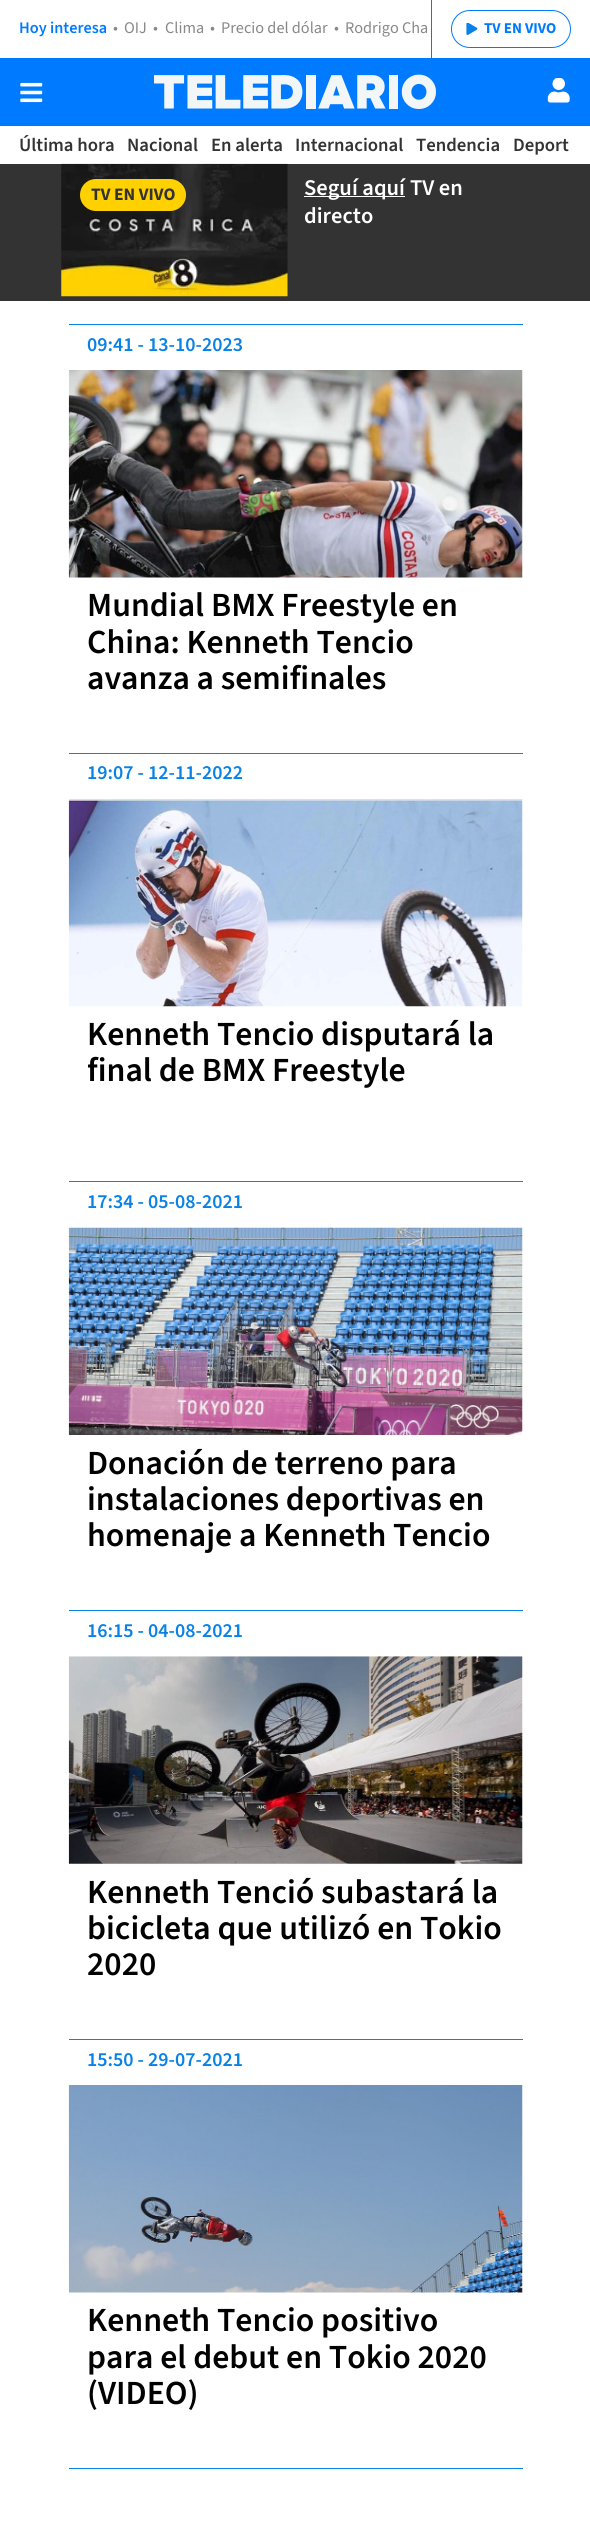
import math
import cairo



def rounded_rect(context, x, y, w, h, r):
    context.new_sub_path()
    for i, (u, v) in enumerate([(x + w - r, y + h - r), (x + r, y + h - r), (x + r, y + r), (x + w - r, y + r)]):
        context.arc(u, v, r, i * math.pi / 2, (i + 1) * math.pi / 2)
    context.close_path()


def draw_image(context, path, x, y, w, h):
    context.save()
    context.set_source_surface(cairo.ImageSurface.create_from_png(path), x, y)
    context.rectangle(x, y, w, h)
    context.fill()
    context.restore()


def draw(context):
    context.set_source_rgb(1, 1, 1)
    context.paint()
    context.set_source_rgb(0, 123 / 255, 1)
    context.rectangle(431, 0, 1, 58)
    context.fill()
    rounded_rect(context, 451.5, 10.5, 119, 37, 18.5)
    context.set_line_width(1)
    context.stroke()
    draw_image(context, "images/1.png", 466, 23, 12, 12)
    context.rectangle(0, 58, 590, 68)
    context.fill()
    draw_image(context, "images/2.png", 20, 82, 23, 21)
    draw_image(context, "images/3.png", 154, 74, 282, 35)
    draw_image(context, "images/4.png", 547, 78, 23, 25)
    context.set_source_rgb(51 / 255, 51 / 255, 51 / 255)
    context.rectangle(0, 164, 590, 137)
    context.fill()
    draw_image(context, "images/5.png", 61, 163, 227, 134)
    context.set_source_rgb(1, 1, 1)
    context.rectangle(304, 196, 101, 1)
    context.fill()
    context.set_source_rgb(1, 209 / 255, 0)
    rounded_rect(context, 80, 179, 106, 32, 16)
    context.fill()
    context.set_source_rgb(9 / 255, 130 / 255, 231 / 255)
    context.rectangle(69, 324, 454, 1)
    context.fill()
    draw_image(context, "images/6.png", 68, 370, 455, 208)
    context.rectangle(69, 753, 454, 1)
    context.fill()
    draw_image(context, "images/7.png", 68, 799, 455, 208)
    context.rectangle(69, 1181, 454, 1)
    context.fill()
    draw_image(context, "images/8.png", 68, 1227, 455, 208)
    context.rectangle(69, 1610, 454, 1)
    context.fill()
    draw_image(context, "images/9.png", 68, 1656, 455, 208)
    context.rectangle(69, 2039, 454, 1)
    context.fill()
    draw_image(context, "images/10.png", 68, 2085, 455, 208)
    context.rectangle(69, 2468, 454, 1)
    context.fill()
    context.select_font_face("Source Sans 3 SemiBold")
    context.set_font_size(16.25)
    context.set_source_rgb(0, 123 / 255, 1)
    context.move_to(19, 33)
    context.show_text("Hoy interesa")
    context.select_font_face("Source Sans 3")
    context.set_source_rgb(136 / 255, 136 / 255, 136 / 255)
    context.move_to(113, 33)
    context.show_text("•")
    context.move_to(124, 33)
    context.show_text("OIJ")
    context.move_to(153, 33)
    context.show_text("•")
    context.move_to(165, 33)
    context.show_text("Clima")
    context.move_to(210, 33)
    context.show_text("•")
    context.move_to(221, 33)
    context.show_text("Precio del dólar")
    context.move_to(334, 33)
    context.show_text("•")
    context.move_to(345, 33)
    context.show_text("Rodrigo Cha")
    context.select_font_face("Source Sans 3", cairo.FontSlant.NORMAL, cairo.FontWeight.BOLD)
    context.set_font_size(15)
    context.set_source_rgb(0, 123 / 255, 1)
    context.move_to(484, 33)
    context.show_text("TV EN VIVO")
    context.select_font_face("Source Sans 3 SemiBold")
    context.set_font_size(18.75)
    context.set_source_rgb(51 / 255, 51 / 255, 51 / 255)
    context.move_to(19, 151)
    context.show_text("Última hora")
    context.move_to(127, 151)
    context.show_text("Nacional")
    context.move_to(211, 151)
    context.show_text("En alerta")
    context.move_to(295, 151)
    context.show_text("Internacional")
    context.move_to(416, 151)
    context.show_text("Tendencia")
    context.move_to(513, 151)
    context.show_text("Deport")
    context.set_font_size(22.5)
    context.set_source_rgb(1, 1, 1)
    context.move_to(304, 195)
    context.show_text("Seguí aquí")
    context.move_to(410, 195)
    context.show_text("TV en")
    context.move_to(304, 223)
    context.show_text("directo")
    context.select_font_face("Source Sans 3", cairo.FontSlant.NORMAL, cairo.FontWeight.BOLD)
    context.set_font_size(17.5)
    context.set_source_rgb(51 / 255, 51 / 255, 51 / 255)
    context.move_to(91, 200)
    context.show_text("TV EN VIVO")
    context.select_font_face("Source Sans 3 SemiBold")
    context.set_font_size(20)
    context.set_source_rgb(9 / 255, 130 / 255, 231 / 255)
    context.move_to(87, 351)
    context.show_text("09:41 - 13-10-2023")
    context.set_font_size(33.75)
    context.set_source_rgb(0, 0, 0)
    context.move_to(87, 616)
    context.show_text("Mundial BMX Freestyle en")
    context.move_to(87, 653)
    context.show_text("China: Kenneth Tencio")
    context.move_to(87, 689)
    context.show_text("avanza a semifinales")
    context.set_font_size(20)
    context.set_source_rgb(9 / 255, 130 / 255, 231 / 255)
    context.move_to(87, 779)
    context.show_text("19:07 - 12-11-2022")
    context.set_font_size(33.75)
    context.set_source_rgb(0, 0, 0)
    context.move_to(87, 1045)
    context.show_text("Kenneth Tencio disputará la")
    context.save()
    context.rectangle(88, 1016, 416, 73)
    context.clip()
    context.move_to(87, 1081)
    context.show_text("final de BMX Freestyle")
    context.restore()
    context.set_font_size(20)
    context.set_source_rgb(9 / 255, 130 / 255, 231 / 255)
    context.move_to(87, 1208)
    context.show_text("17:34 - 05-08-2021")
    context.set_font_size(33.75)
    context.set_source_rgb(0, 0, 0)
    context.move_to(87, 1474)
    context.show_text("Donación de terreno para")
    context.move_to(87, 1510)
    context.show_text("instalaciones deportivas en")
    context.move_to(87, 1546)
    context.show_text("homenaje a Kenneth Tencio")
    context.set_font_size(20)
    context.set_source_rgb(9 / 255, 130 / 255, 231 / 255)
    context.move_to(87, 1637)
    context.show_text("16:15 - 04-08-2021")
    context.set_font_size(33.75)
    context.set_source_rgb(0, 0, 0)
    context.move_to(87, 1903)
    context.show_text("Kenneth Tenció subastará la")
    context.move_to(87, 1939)
    context.show_text("bicicleta que utilizó en Tokio")
    context.move_to(87, 1975)
    context.show_text("2020")
    context.set_font_size(20)
    context.set_source_rgb(9 / 255, 130 / 255, 231 / 255)
    context.move_to(87, 2066)
    context.show_text("15:50 - 29-07-2021")
    context.set_font_size(33.75)
    context.set_source_rgb(0, 0, 0)
    context.move_to(87, 2331)
    context.show_text("Kenneth Tencio positivo")
    context.move_to(87, 2368)
    context.show_text("para el debut en Tokio 2020")
    context.move_to(87, 2404)
    context.show_text("(VIDEO)")


surface = cairo.ImageSurface(cairo.Format.RGB24, 590, 2534)
context = cairo.Context(surface)
options = cairo.FontOptions()
options.set_hint_metrics(cairo.HintMetrics.OFF)
options.set_hint_style(cairo.HintStyle.NONE)
context.set_font_options(options)
context.set_miter_limit(4)
draw(context)
surface.write_to_png("out.png")
